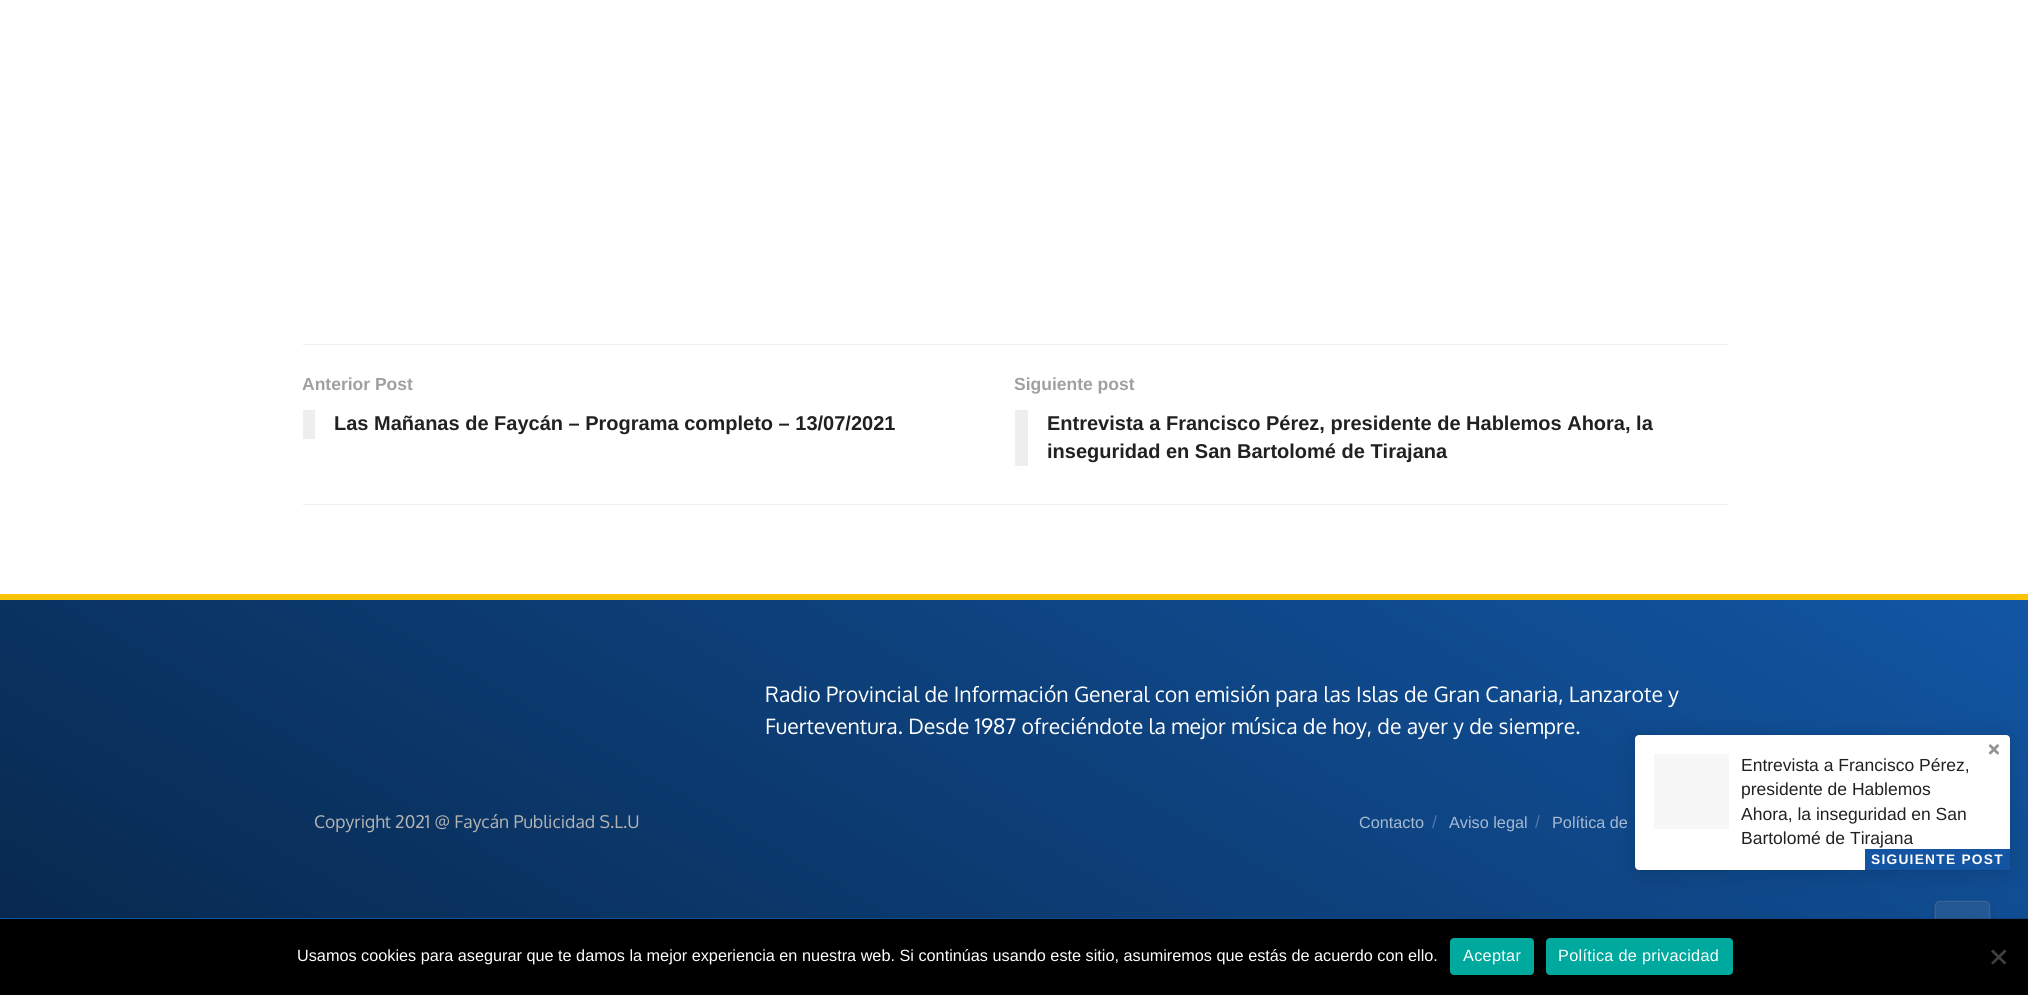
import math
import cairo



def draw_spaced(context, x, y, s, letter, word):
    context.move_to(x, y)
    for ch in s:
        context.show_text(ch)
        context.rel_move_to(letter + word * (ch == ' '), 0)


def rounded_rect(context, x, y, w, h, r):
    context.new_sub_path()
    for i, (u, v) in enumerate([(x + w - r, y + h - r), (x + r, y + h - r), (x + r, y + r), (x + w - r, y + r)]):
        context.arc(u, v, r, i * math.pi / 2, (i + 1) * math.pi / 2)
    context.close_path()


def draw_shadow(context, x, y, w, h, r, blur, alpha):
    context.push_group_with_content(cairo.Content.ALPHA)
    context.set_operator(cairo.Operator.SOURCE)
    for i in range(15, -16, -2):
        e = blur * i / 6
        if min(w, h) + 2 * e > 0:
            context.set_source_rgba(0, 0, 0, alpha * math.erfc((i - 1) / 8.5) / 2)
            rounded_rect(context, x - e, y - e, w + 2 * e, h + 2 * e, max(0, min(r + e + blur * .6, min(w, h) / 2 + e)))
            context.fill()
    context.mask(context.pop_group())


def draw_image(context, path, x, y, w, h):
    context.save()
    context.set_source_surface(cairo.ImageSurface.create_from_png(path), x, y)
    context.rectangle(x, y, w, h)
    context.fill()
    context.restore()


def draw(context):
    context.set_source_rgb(1, 1, 1)
    context.paint()
    context.set_source_rgb(238 / 255, 238 / 255, 238 / 255)
    context.rectangle(303, 344, 1425, 1)
    context.fill()
    context.rectangle(303, 504, 1425, 1)
    context.fill()
    context.rectangle(303, 410, 12, 29)
    context.fill()
    context.rectangle(1015, 410, 13, 56)
    context.fill()
    gradient = cairo.LinearGradient(692, 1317, 1337, 200)
    gradient.add_color_stop_rgba(0, 8 / 255, 41 / 255, 79 / 255, 1)
    gradient.add_color_stop_rgba(1, 18 / 255, 86 / 255, 164 / 255, 1)
    context.set_source(gradient)
    context.rectangle(0, 600, 2028, 318)
    context.fill()
    context.set_source_rgb(0, 0, 0)
    draw_shadow(context, 1635, 738, 375, 135, 4, 12.5, 0.15)
    draw_shadow(context, 1635, 735, 375, 135, 4, 0.5, 0.2)
    context.set_source_rgb(1, 1, 1)
    rounded_rect(context, 1635, 735, 375, 135, 4)
    context.fill()
    draw_image(context, "images/1.png", 1988, 744, 11, 11)
    context.set_source_rgb(247 / 255, 247 / 255, 247 / 255)
    context.rectangle(1654, 754, 75, 75)
    context.fill()
    context.set_source_rgb(20 / 255, 85 / 255, 163 / 255)
    context.rectangle(1865, 849, 145, 21)
    context.fill()
    context.set_source_rgb(252 / 255, 196 / 255, 4 / 255)
    context.rectangle(0, 594, 2028, 6)
    context.fill()
    gradient = cairo.LinearGradient(0, 956, 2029, 956)
    gradient.add_color_stop_rgba(0, 18 / 255, 86 / 255, 164 / 255, 1)
    gradient.add_color_stop_rgba(1, 12 / 255, 65 / 255, 125 / 255, 1)
    context.set_source(gradient)
    context.rectangle(0, 918, 2028, 1)
    context.fill()
    context.save()
    context.set_fill_rule(cairo.FillRule.EVEN_ODD)
    context.new_path()
    context.move_to(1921, 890)
    context.line_to(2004, 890)
    context.line_to(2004, 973)
    context.line_to(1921, 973)
    context.close_path()
    context.move_to(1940, 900)
    context.line_to(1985, 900)
    context.curve_to(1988.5, 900, 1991, 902.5, 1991, 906)
    context.line_to(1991, 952)
    context.curve_to(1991, 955.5, 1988.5, 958, 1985, 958)
    context.line_to(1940, 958)
    context.curve_to(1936.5, 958, 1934, 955.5, 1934, 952)
    context.line_to(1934, 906)
    context.curve_to(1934, 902.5, 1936.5, 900, 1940, 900)
    context.close_path()
    context.clip()
    context.set_source_rgb(0, 0, 0)
    draw_shadow(context, 1934, 903, 57, 57, 6, 4, 0.08)
    context.restore()
    context.set_source_rgba(181 / 255, 181 / 255, 181 / 255, 0.12)
    rounded_rect(context, 1934, 900, 57, 58, 6)
    context.fill()
    rounded_rect(context, 1935.5, 901.5, 54, 54, 4.5)
    context.set_source_rgba(1, 1, 1, 0.08)
    context.set_line_width(1)
    context.stroke()
    rounded_rect(context, 1934.5, 900.5, 56, 57, 5.5)
    context.set_source_rgba(0, 0, 0, 0.09)
    context.stroke()
    context.set_source_rgb(0, 0, 0)
    context.rectangle(0, 919, 2028, 76)
    context.fill()
    context.set_source_rgb(0, 169 / 255, 157 / 255)
    rounded_rect(context, 1450, 938, 84, 37, 4)
    context.fill()
    rounded_rect(context, 1546, 938, 187, 37, 4)
    context.fill()
    context.set_source_rgb(64 / 255, 64 / 255, 64 / 255)
    context.new_path()
    context.move_to(2004.5, 949.5)
    context.line_to(2006.5, 951.5)
    context.line_to(1993, 964.5)
    context.line_to(1991, 963)
    context.close_path()
    context.fill()
    context.new_path()
    context.move_to(1991, 951.5)
    context.line_to(1993, 949.5)
    context.line_to(2006.5, 963)
    context.line_to(2004.5, 964.5)
    context.close_path()
    context.fill()
    context.select_font_face("Liberation Sans", cairo.FontSlant.NORMAL, cairo.FontWeight.BOLD)
    context.set_font_size(17.5)
    context.set_source_rgb(160 / 255, 160 / 255, 160 / 255)
    context.move_to(302, 390)
    context.show_text("Anterior Post")
    context.set_font_size(20)
    context.set_source_rgb(33 / 255, 33 / 255, 33 / 255)
    context.move_to(334, 430)
    context.show_text("Las Mañanas de Faycán – Programa completo – 13/07/2021")
    context.set_font_size(17.5)
    context.set_source_rgb(160 / 255, 160 / 255, 160 / 255)
    context.move_to(1014, 390)
    context.show_text("Siguiente post")
    context.set_font_size(20)
    context.set_source_rgb(33 / 255, 33 / 255, 33 / 255)
    context.move_to(1047, 430)
    context.show_text("Entrevista a Francisco Pérez, presidente de Hablemos Ahora, la")
    context.move_to(1047, 458)
    context.show_text("inseguridad en San Bartolomé de Tirajana")
    context.select_font_face("Liberation Sans")
    context.set_font_size(17.5)
    context.move_to(1741, 771)
    context.show_text("Entrevista a Francisco Pérez,")
    context.move_to(1741, 795)
    context.show_text("presidente de Hablemos")
    context.move_to(1741, 820)
    context.show_text("Ahora, la inseguridad en San")
    context.move_to(1741, 844)
    context.show_text("Bartolomé de Tirajana")
    context.select_font_face("Liberation Sans", cairo.FontSlant.NORMAL, cairo.FontWeight.BOLD)
    context.set_font_size(13.75)
    context.set_source_rgb(1, 1, 1)
    draw_spaced(context, 1871, 864, "SIGUIENTE POST", 1.25, 0)
    context.select_font_face("Oxygen")
    context.set_font_size(21.25)
    context.move_to(765, 702)
    context.show_text("Radio Provincial de Información General con emisión para las Islas de Gran Canaria, Lanzarote y")
    context.move_to(765, 734)
    context.show_text("Fuerteventura. Desde 1987 ofreciéndote la mejor música de hoy, de ayer y de siempre.")
    context.set_font_size(17.5)
    context.set_source_rgb(180 / 255, 180 / 255, 180 / 255)
    context.move_to(314, 828)
    context.show_text("Copyright 2021 @ Faycán Publicidad S.L.U")
    context.select_font_face("Liberation Sans")
    context.set_font_size(16.25)
    context.set_source_rgb(166 / 255, 186 / 255, 209 / 255)
    context.move_to(1359, 828)
    context.show_text("Contacto")
    context.set_font_size(17.5)
    context.set_source_rgb(79 / 255, 119 / 255, 165 / 255)
    context.move_to(1432, 828)
    context.show_text("/")
    context.set_font_size(16.25)
    context.set_source_rgb(166 / 255, 186 / 255, 209 / 255)
    context.move_to(1449, 828)
    context.show_text("Aviso legal")
    context.set_font_size(17.5)
    context.set_source_rgb(79 / 255, 119 / 255, 165 / 255)
    context.move_to(1535, 828)
    context.show_text("/")
    context.set_font_size(16.25)
    context.set_source_rgb(166 / 255, 186 / 255, 209 / 255)
    context.move_to(1552, 828)
    context.show_text("Política de")
    context.set_source_rgb(1, 1, 1)
    context.move_to(297, 961)
    context.show_text("Usamos cookies para asegurar que te damos la mejor experiencia en nuestra web. Si continúas usando este sitio, asumiremos que estás de acuerdo con ello.")
    draw_spaced(context, 1463, 961, "Aceptar", 0.3, 0)
    draw_spaced(context, 1558, 961, "Política de privacidad", 0.3, 0)


surface = cairo.ImageSurface(cairo.Format.RGB24, 2028, 995)
context = cairo.Context(surface)
options = cairo.FontOptions()
options.set_hint_metrics(cairo.HintMetrics.OFF)
options.set_hint_style(cairo.HintStyle.NONE)
context.set_font_options(options)
context.set_miter_limit(4)
draw(context)
surface.write_to_png("out.png")
